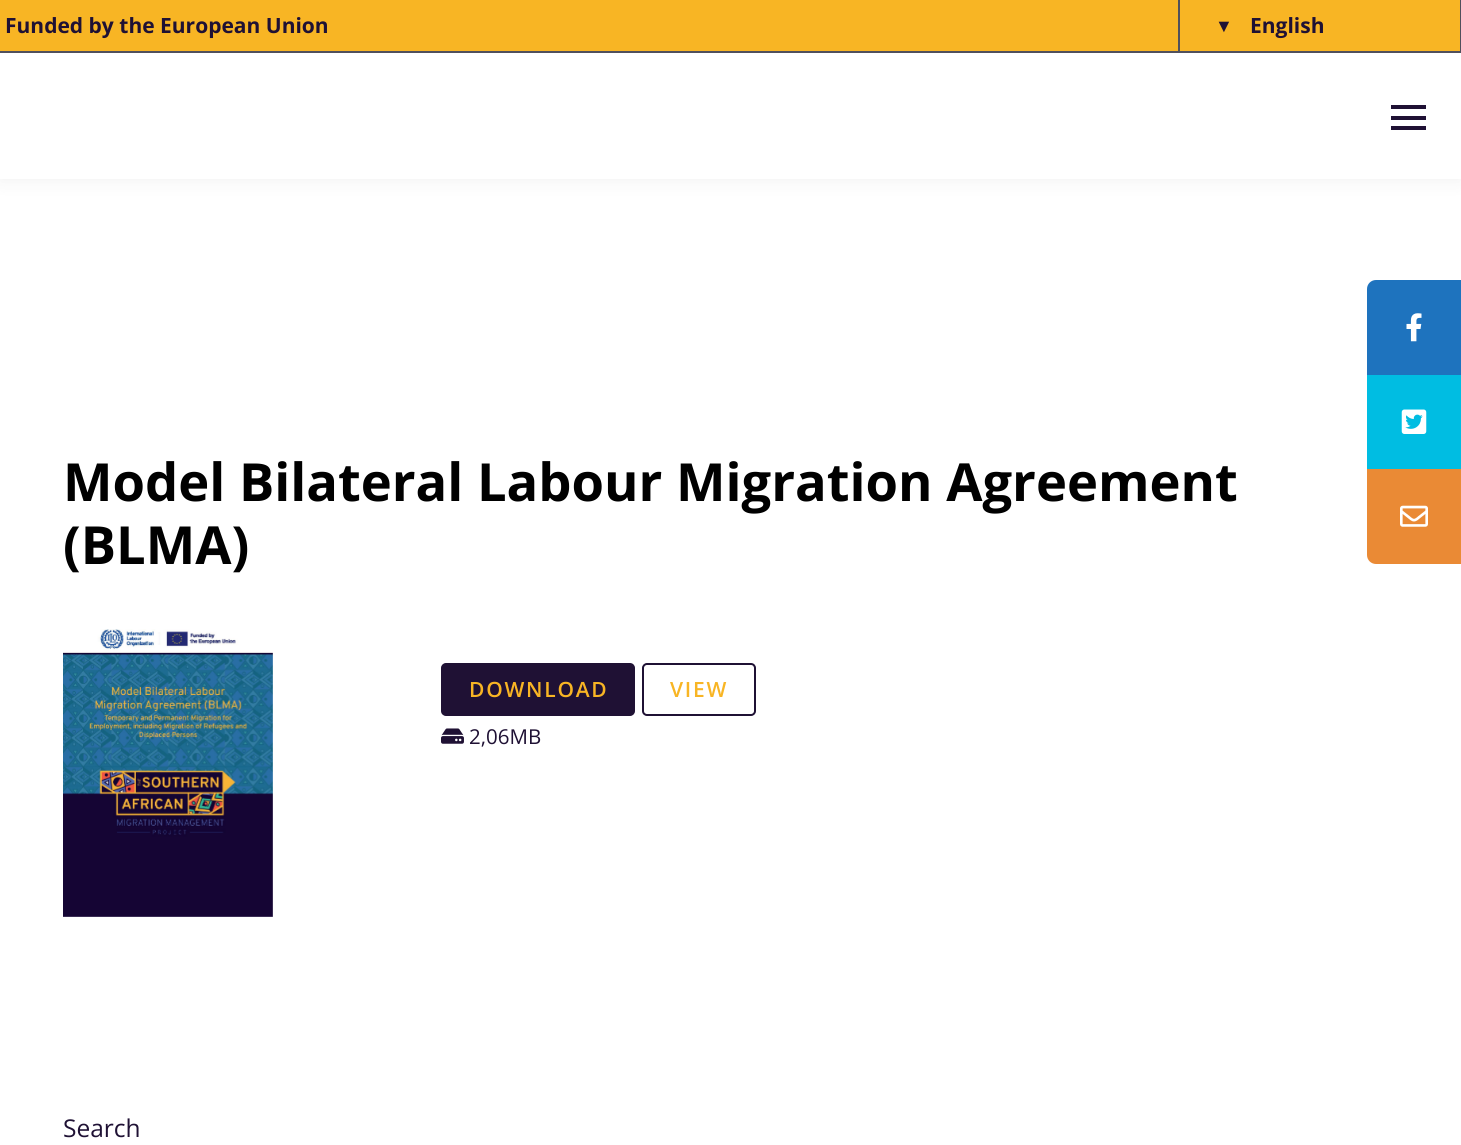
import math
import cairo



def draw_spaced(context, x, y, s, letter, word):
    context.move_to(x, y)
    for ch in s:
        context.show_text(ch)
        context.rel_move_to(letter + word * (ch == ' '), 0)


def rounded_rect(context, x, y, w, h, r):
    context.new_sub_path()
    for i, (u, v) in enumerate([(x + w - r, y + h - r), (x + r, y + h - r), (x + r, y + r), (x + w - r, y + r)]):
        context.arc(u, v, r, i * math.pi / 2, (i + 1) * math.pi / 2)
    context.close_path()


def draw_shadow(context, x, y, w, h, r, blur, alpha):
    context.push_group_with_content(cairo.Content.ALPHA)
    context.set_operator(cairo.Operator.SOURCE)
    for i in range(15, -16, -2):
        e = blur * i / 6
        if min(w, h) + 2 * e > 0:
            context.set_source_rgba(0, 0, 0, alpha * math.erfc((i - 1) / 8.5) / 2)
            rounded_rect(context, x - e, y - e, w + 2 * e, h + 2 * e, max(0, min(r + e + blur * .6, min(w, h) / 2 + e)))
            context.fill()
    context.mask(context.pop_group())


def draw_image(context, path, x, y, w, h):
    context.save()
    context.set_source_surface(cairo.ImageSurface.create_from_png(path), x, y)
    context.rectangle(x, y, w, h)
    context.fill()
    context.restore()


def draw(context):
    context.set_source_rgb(1, 1, 1)
    context.paint()
    context.set_source_rgb(0, 0, 0)
    draw_shadow(context, 0, 4, 1461, 178, 0, 9, 0.05)
    context.set_source_rgb(1, 1, 1)
    context.rectangle(0, 53, 1461, 126)
    context.fill()
    context.set_source_rgb(248 / 255, 181 / 255, 36 / 255)
    context.rectangle(0, 0, 1460, 51)
    context.fill()
    context.set_source_rgb(80 / 255, 80 / 255, 92 / 255)
    context.rectangle(0, 51, 1461, 2)
    context.fill()
    context.rectangle(1460, 0, 1, 51)
    context.fill()
    context.rectangle(1178, 0, 2, 51)
    context.fill()
    context.set_source_rgb(31 / 255, 17 / 255, 52 / 255)
    context.rectangle(1391, 105, 35, 4)
    context.fill()
    context.rectangle(1391, 116, 35, 4)
    context.fill()
    context.rectangle(1391, 126, 35, 4)
    context.fill()
    context.set_source_rgb(30 / 255, 115 / 255, 190 / 255)
    context.new_path()
    context.move_to(1376, 280)
    context.line_to(1461, 280)
    context.line_to(1461, 375)
    context.line_to(1367, 375)
    context.line_to(1367, 289)
    context.curve_to(1367, 284, 1371, 280, 1376, 280)
    context.close_path()
    context.fill()
    draw_image(context, "images/1.png", 1406, 313, 16, 29)
    context.set_source_rgb(0, 189 / 255, 226 / 255)
    context.rectangle(1367, 375, 94, 94)
    context.fill()
    draw_image(context, "images/2.png", 1401, 409, 26, 25)
    context.set_source_rgb(234 / 255, 138 / 255, 53 / 255)
    context.new_path()
    context.move_to(1367, 469)
    context.line_to(1461, 469)
    context.line_to(1461, 564)
    context.line_to(1376, 564)
    context.curve_to(1371, 564, 1367, 560, 1367, 555)
    context.close_path()
    context.fill()
    draw_image(context, "images/3.png", 1400, 505, 28, 22)
    draw_image(context, "images/4.png", 63, 629, 210, 288)
    context.set_source_rgb(31 / 255, 17 / 255, 52 / 255)
    rounded_rect(context, 442, 664, 192, 51, 4)
    context.fill_preserve()
    context.stroke()
    rounded_rect(context, 643, 664, 112, 51, 4)
    context.stroke()
    draw_image(context, "images/5.png", 441, 728, 23, 16)
    context.select_font_face("Open Sans", cairo.FontSlant.NORMAL, cairo.FontWeight.BOLD)
    context.set_font_size(21)
    context.move_to(5, 33)
    context.show_text("Funded by the European Union")
    context.select_font_face("Liberation Serif", cairo.FontSlant.NORMAL, cairo.FontWeight.BOLD)
    context.set_font_size(18)
    context.move_to(1215, 32)
    context.show_text("▼")
    context.select_font_face("Open Sans", cairo.FontSlant.NORMAL, cairo.FontWeight.BOLD)
    context.set_font_size(21)
    context.move_to(1250, 33)
    context.show_text("English")
    context.set_font_size(52.5)
    context.set_source_rgb(0, 0, 0)
    context.move_to(63, 501)
    context.show_text("Model Bilateral Labour Migration Agreement")
    context.move_to(63, 564)
    context.show_text("(BLMA)")
    context.select_font_face("Open Sans SemiBold")
    context.set_font_size(21)
    context.set_source_rgb(248 / 255, 181 / 255, 36 / 255)
    draw_spaced(context, 469, 697, "DOWNLOAD", 1.75, 0)
    draw_spaced(context, 670, 697, "VIEW", 1.75, 0)
    context.select_font_face("Open Sans")
    context.set_font_size(20.5)
    context.set_source_rgb(31 / 255, 17 / 255, 52 / 255)
    context.move_to(469, 744)
    context.show_text("2,06MB")
    context.set_font_size(24.5)
    context.move_to(63, 1137)
    context.show_text("Search")


surface = cairo.ImageSurface(cairo.Format.RGB24, 1461, 1145)
context = cairo.Context(surface)
options = cairo.FontOptions()
options.set_hint_metrics(cairo.HintMetrics.OFF)
options.set_hint_style(cairo.HintStyle.NONE)
context.set_font_options(options)
context.set_miter_limit(4)
draw(context)
surface.write_to_png("out.png")
